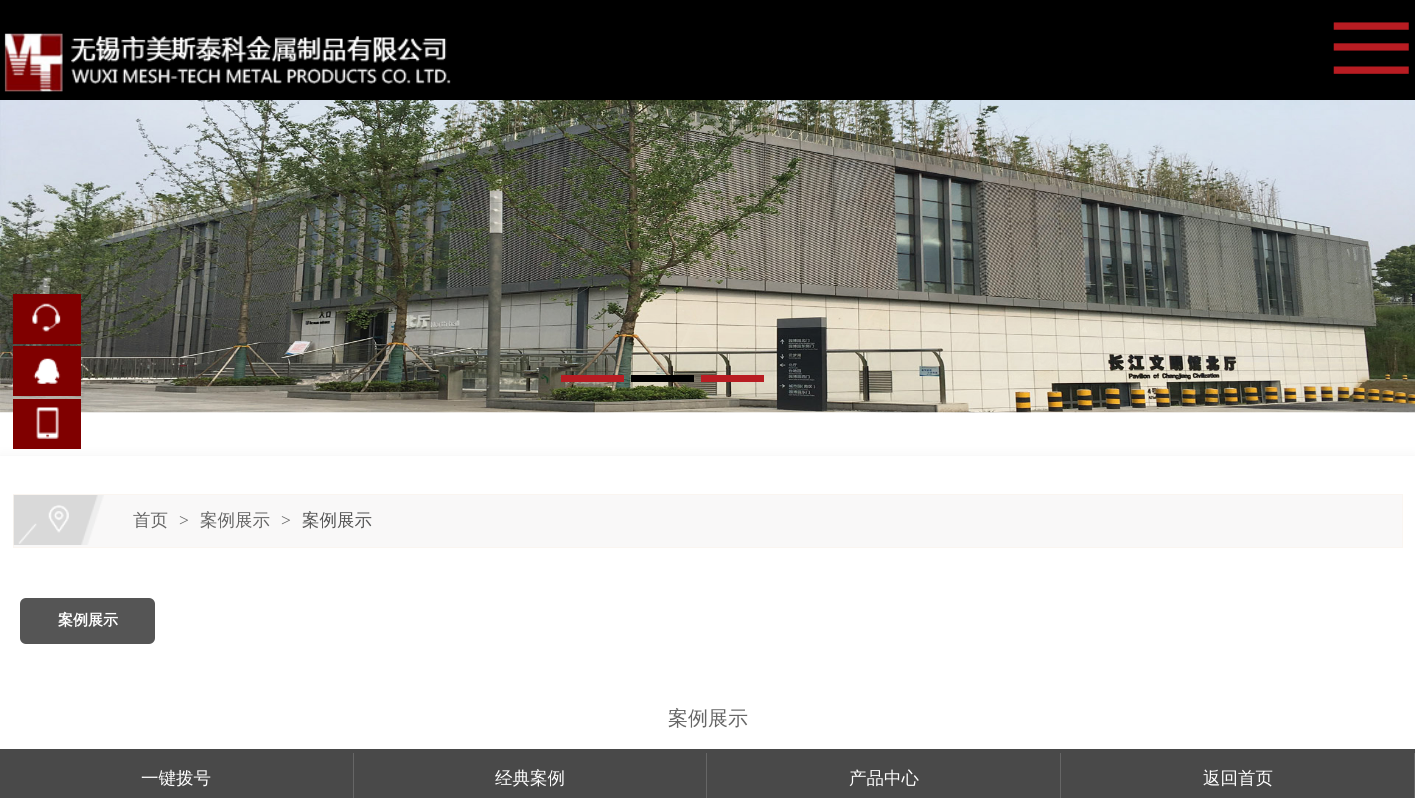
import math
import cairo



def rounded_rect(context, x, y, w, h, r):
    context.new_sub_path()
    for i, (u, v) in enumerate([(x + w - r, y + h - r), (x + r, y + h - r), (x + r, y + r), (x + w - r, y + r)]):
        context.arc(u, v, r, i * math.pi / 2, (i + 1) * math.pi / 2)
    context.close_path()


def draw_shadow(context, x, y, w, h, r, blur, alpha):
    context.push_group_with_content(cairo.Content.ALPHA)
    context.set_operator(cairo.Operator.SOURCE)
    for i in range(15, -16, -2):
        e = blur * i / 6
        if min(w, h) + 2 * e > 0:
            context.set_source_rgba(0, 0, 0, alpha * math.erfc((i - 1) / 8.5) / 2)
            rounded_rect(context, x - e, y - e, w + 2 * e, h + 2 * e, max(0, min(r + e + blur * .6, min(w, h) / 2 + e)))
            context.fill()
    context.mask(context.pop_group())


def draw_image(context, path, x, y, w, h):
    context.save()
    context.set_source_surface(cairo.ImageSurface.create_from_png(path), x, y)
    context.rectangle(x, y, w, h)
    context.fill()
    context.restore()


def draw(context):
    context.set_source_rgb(1, 1, 1)
    context.paint()
    context.set_source_rgb(0, 0, 0)
    context.rectangle(0, 0, 1415, 100)
    context.fill()
    draw_image(context, "images/1.png", 4, 33, 447, 59)
    draw_image(context, "images/2.png", 1333, 22, 76, 52)
    draw_image(context, "images/3.png", 0, 100, 1415, 313)
    draw_image(context, "images/4.png", 0, 100, 1415, 312)
    context.set_source_rgb(184 / 255, 28 / 255, 34 / 255)
    context.rectangle(561, 375, 63, 7)
    context.fill()
    context.set_source_rgb(0, 0, 0)
    context.rectangle(631, 375, 63, 7)
    context.fill()
    context.set_source_rgb(184 / 255, 28 / 255, 34 / 255)
    context.rectangle(701, 375, 63, 7)
    context.fill()
    context.set_source_rgb(128 / 255, 0, 0)
    context.rectangle(13, 294, 68, 50)
    context.fill()
    draw_image(context, "images/5.png", 32, 303, 29, 29)
    context.rectangle(13, 346, 68, 50)
    context.fill()
    draw_image(context, "images/6.png", 33, 358, 28, 26)
    context.set_source_rgb(238 / 255, 238 / 255, 238 / 255)
    draw_shadow(context, 0, 458, 1415, 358, 0, 6, 1)
    context.set_source_rgb(128 / 255, 0, 0)
    context.rectangle(13, 399, 68, 50)
    context.fill()
    draw_image(context, "images/7.png", 36, 407, 23, 32)
    context.set_source_rgb(1, 1, 1)
    context.rectangle(0, 456, 1415, 293)
    context.fill()
    context.set_source_rgb(249 / 255, 248 / 255, 248 / 255)
    context.rectangle(13.5, 494.5, 1389, 53)
    context.fill_preserve()
    context.set_source_rgb(250 / 255, 245 / 255, 240 / 255)
    context.set_line_width(1)
    context.stroke()
    draw_image(context, "images/8.png", 13, 495, 91, 50)
    context.set_source_rgb(85 / 255, 85 / 255, 85 / 255)
    rounded_rect(context, 20, 598, 135, 46, 6)
    context.fill()
    context.set_source_rgb(73 / 255, 73 / 255, 73 / 255)
    context.rectangle(0, 749, 1415, 49)
    context.fill()
    context.set_source_rgb(102 / 255, 102 / 255, 102 / 255)
    context.rectangle(353, 753, 1, 45)
    context.fill()
    context.rectangle(706, 753, 1, 45)
    context.fill()
    context.rectangle(1060, 753, 1, 45)
    context.fill()
    context.rectangle(1414, 753, 1, 45)
    context.fill()
    context.select_font_face("WenQuanYi Zen Hei Medium")
    context.set_font_size(17.5)
    context.move_to(133, 526)
    context.show_text("首页")
    context.select_font_face("Liberation Serif")
    context.move_to(179, 526)
    context.show_text(">")
    context.select_font_face("WenQuanYi Zen Hei Medium")
    context.move_to(200, 526)
    context.show_text("案例展示")
    context.select_font_face("Liberation Serif")
    context.move_to(281, 526)
    context.show_text(">")
    context.select_font_face("WenQuanYi Zen Hei Medium")
    context.set_source_rgb(85 / 255, 85 / 255, 85 / 255)
    context.move_to(302, 526)
    context.show_text("案例展示")
    context.select_font_face("WenQuanYi Zen Hei", cairo.FontSlant.NORMAL, cairo.FontWeight.BOLD)
    context.set_font_size(15)
    context.set_source_rgb(1, 1, 1)
    context.move_to(58, 625)
    context.show_text("案例展示")
    context.select_font_face("WenQuanYi Zen Hei Medium")
    context.set_font_size(20)
    context.set_source_rgb(102 / 255, 102 / 255, 102 / 255)
    context.move_to(668, 725)
    context.show_text("案例展示")
    context.set_font_size(17.5)
    context.set_source_rgb(1, 1, 1)
    context.move_to(141, 784)
    context.show_text("一键拨号")
    context.move_to(495, 784)
    context.show_text("经典案例")
    context.move_to(849, 784)
    context.show_text("产品中心")
    context.move_to(1203, 784)
    context.show_text("返回首页")


surface = cairo.ImageSurface(cairo.Format.RGB24, 1415, 798)
context = cairo.Context(surface)
options = cairo.FontOptions()
options.set_hint_metrics(cairo.HintMetrics.OFF)
options.set_hint_style(cairo.HintStyle.NONE)
context.set_font_options(options)
context.set_miter_limit(4)
draw(context)
surface.write_to_png("out.png")
